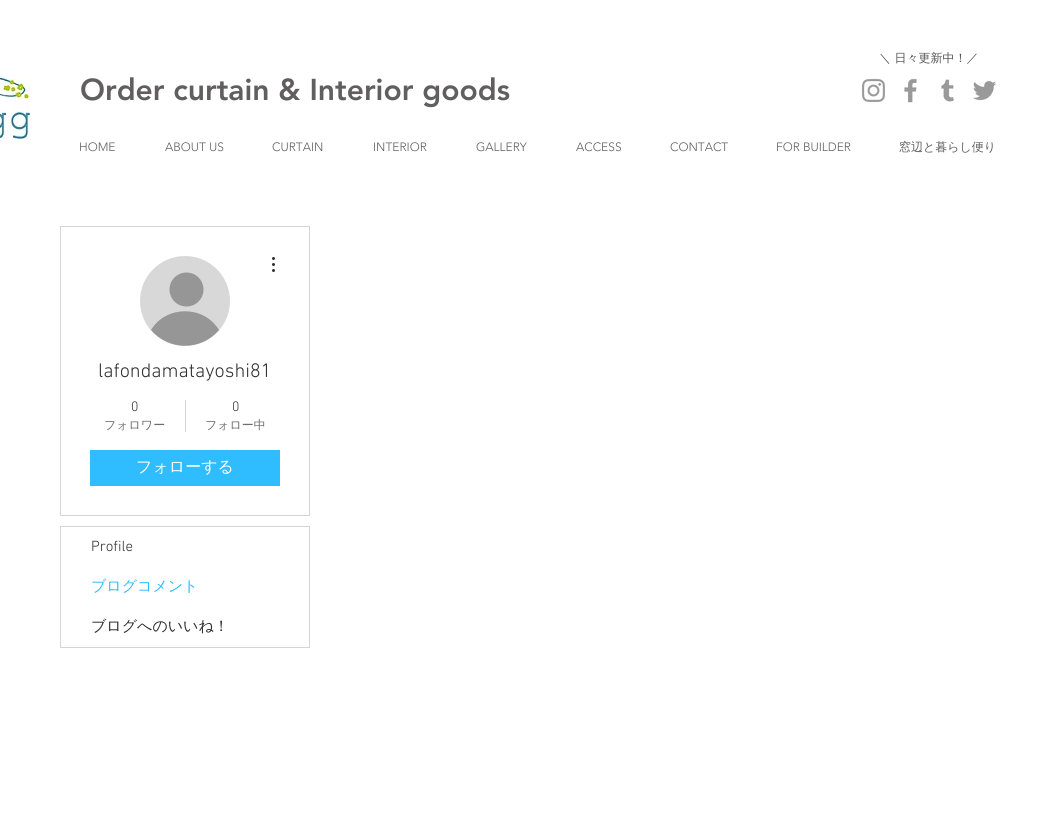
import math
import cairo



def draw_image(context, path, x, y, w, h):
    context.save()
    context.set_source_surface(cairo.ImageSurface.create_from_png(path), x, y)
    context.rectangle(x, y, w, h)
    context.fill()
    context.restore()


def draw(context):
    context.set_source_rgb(1, 1, 1)
    context.paint()
    draw_image(context, "images/1.png", 0, 77, 30, 62)
    draw_image(context, "images/2.png", 861, 78, 24, 24)
    draw_image(context, "images/3.png", 904, 78, 13, 25)
    draw_image(context, "images/4.png", 941, 79, 13, 23)
    draw_image(context, "images/5.png", 973, 81, 24, 20)
    context.rectangle(60.5, 226.5, 249, 289)
    context.set_source_rgb(213 / 255, 213 / 255, 213 / 255)
    context.set_line_width(1)
    context.stroke()
    context.set_source_rgb(216 / 255, 216 / 255, 216 / 255)
    context.arc(185, 301, 45, 0, 2 * math.pi)
    context.fill()
    context.set_source_rgb(150 / 255, 150 / 255, 150 / 255)
    context.arc(186.5, 289.5, 17, 0, 2 * math.pi)
    context.fill()
    context.new_path()
    context.move_to(219, 330)
    context.curve_to(201, 351, 169, 351, 151, 330)
    context.curve_to(166, 305, 204, 305, 219, 330)
    context.close_path()
    context.fill()
    draw_image(context, "images/6.png", 272, 257, 3, 15)
    context.set_source_rgb(213 / 255, 213 / 255, 213 / 255)
    context.rectangle(185, 400, 1, 32)
    context.fill()
    context.set_source_rgb(48 / 255, 189 / 255, 1)
    context.rectangle(90, 450, 190, 36)
    context.fill()
    context.rectangle(60.5, 526.5, 249, 121)
    context.set_source_rgb(213 / 255, 213 / 255, 213 / 255)
    context.stroke()
    context.select_font_face("WenQuanYi Zen Hei Medium")
    context.set_font_size(12)
    context.set_source_rgb(84 / 255, 84 / 255, 84 / 255)
    context.move_to(879, 62)
    context.show_text("＼ 日々更新中！／")
    context.select_font_face("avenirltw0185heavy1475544 Black")
    context.set_font_size(30)
    context.set_source_rgb(96 / 255, 94 / 255, 94 / 255)
    context.move_to(80, 100)
    context.show_text("Order curtain & Interior goods")
    context.select_font_face("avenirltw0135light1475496 Light")
    context.set_font_size(12)
    context.move_to(79, 151)
    context.show_text("HOME")
    context.move_to(165, 151)
    context.show_text("ABOUT US")
    context.move_to(272, 151)
    context.show_text("CURTAIN")
    context.move_to(373, 151)
    context.show_text("INTERIOR")
    context.move_to(476, 151)
    context.show_text("GALLERY")
    context.move_to(576, 151)
    context.show_text("ACCESS")
    context.move_to(670, 151)
    context.show_text("CONTACT")
    context.move_to(776, 151)
    context.show_text("FOR BUILDER")
    context.select_font_face("WenQuanYi Zen Hei Medium")
    context.move_to(899, 151)
    context.show_text("窓辺と暮らし便り")
    context.select_font_face("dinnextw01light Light")
    context.set_font_size(20)
    context.set_source_rgb(47 / 255, 46 / 255, 46 / 255)
    context.move_to(98, 377)
    context.show_text("lafondamatayoshi81")
    context.set_font_size(14)
    context.move_to(131, 411)
    context.show_text("0")
    context.select_font_face("WenQuanYi Zen Hei Medium")
    context.set_font_size(12)
    context.set_source_rgb(109 / 255, 109 / 255, 109 / 255)
    context.move_to(104, 429)
    context.show_text("フォロワー")
    context.select_font_face("dinnextw01light Light")
    context.set_font_size(14)
    context.set_source_rgb(47 / 255, 46 / 255, 46 / 255)
    context.move_to(232, 411)
    context.show_text("0")
    context.select_font_face("WenQuanYi Zen Hei Medium")
    context.set_font_size(12)
    context.set_source_rgb(109 / 255, 109 / 255, 109 / 255)
    context.move_to(205, 429)
    context.show_text("フォロー中")
    context.set_font_size(16)
    context.set_source_rgb(1, 1, 1)
    context.move_to(136, 472)
    context.show_text("フォローする")
    context.select_font_face("dinnextw01light Light")
    context.set_font_size(15)
    context.set_source_rgb(47 / 255, 46 / 255, 46 / 255)
    context.move_to(91, 551)
    context.show_text("Profile")
    context.select_font_face("WenQuanYi Zen Hei Medium")
    context.set_source_rgb(48 / 255, 189 / 255, 1)
    context.move_to(91, 591)
    context.show_text("ブログコメント")
    context.set_source_rgb(47 / 255, 46 / 255, 46 / 255)
    context.move_to(91, 631)
    context.show_text("ブログへのいいね！")


surface = cairo.ImageSurface(cairo.Format.RGB24, 1060, 821)
context = cairo.Context(surface)
options = cairo.FontOptions()
options.set_hint_metrics(cairo.HintMetrics.OFF)
options.set_hint_style(cairo.HintStyle.NONE)
context.set_font_options(options)
context.set_miter_limit(4)
draw(context)
surface.write_to_png("out.png")
